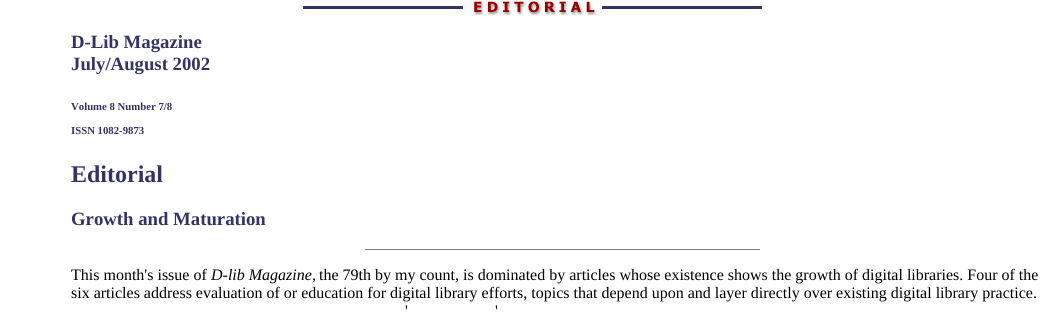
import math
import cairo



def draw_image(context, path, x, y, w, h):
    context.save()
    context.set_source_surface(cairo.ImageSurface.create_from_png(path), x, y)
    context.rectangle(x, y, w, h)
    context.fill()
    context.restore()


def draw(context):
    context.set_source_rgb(1, 1, 1)
    context.paint()
    draw_image(context, "images/1.png", 303, 1, 459, 14)
    context.set_source_rgb(128 / 255, 128 / 255, 128 / 255)
    context.rectangle(365, 249, 395, 1)
    context.fill()
    context.select_font_face("Liberation Serif", cairo.FontSlant.NORMAL, cairo.FontWeight.BOLD)
    context.set_font_size(18.75)
    context.set_source_rgb(51 / 255, 51 / 255, 102 / 255)
    context.move_to(71, 48)
    context.show_text("D-Lib Magazine")
    context.move_to(71, 70)
    context.show_text("July/August 2002")
    context.set_font_size(10.75)
    context.move_to(71, 110)
    context.show_text("Volume 8 Number 7/8")
    context.move_to(71, 134)
    context.show_text("ISSN 1082-9873")
    context.set_font_size(24)
    context.move_to(71, 182)
    context.show_text("Editorial")
    context.set_font_size(18.75)
    context.move_to(71, 225)
    context.show_text("Growth and Maturation")
    context.select_font_face("Liberation Serif")
    context.set_font_size(16)
    context.set_source_rgb(0, 0, 0)
    context.move_to(71, 280)
    context.show_text("This month's issue of")
    context.select_font_face("Liberation Serif", cairo.FontSlant.ITALIC)
    context.move_to(211, 280)
    context.show_text("D-lib Magazine,")
    context.select_font_face("Liberation Serif")
    context.move_to(319, 280)
    context.show_text("the 79th by my count, is dominated by articles whose existence shows the growth of digital libraries. Four of the")
    context.move_to(71, 298)
    context.show_text("six articles address evaluation of or education for digital library efforts, topics that depend upon and layer directly over existing digital library practice.")
    context.move_to(405, 316)
    context.show_text("'")
    context.move_to(495, 316)
    context.show_text("'")


surface = cairo.ImageSurface(cairo.Format.RGB24, 1062, 312)
context = cairo.Context(surface)
options = cairo.FontOptions()
options.set_hint_metrics(cairo.HintMetrics.OFF)
options.set_hint_style(cairo.HintStyle.NONE)
context.set_font_options(options)
context.set_miter_limit(4)
draw(context)
surface.write_to_png("out.png")
